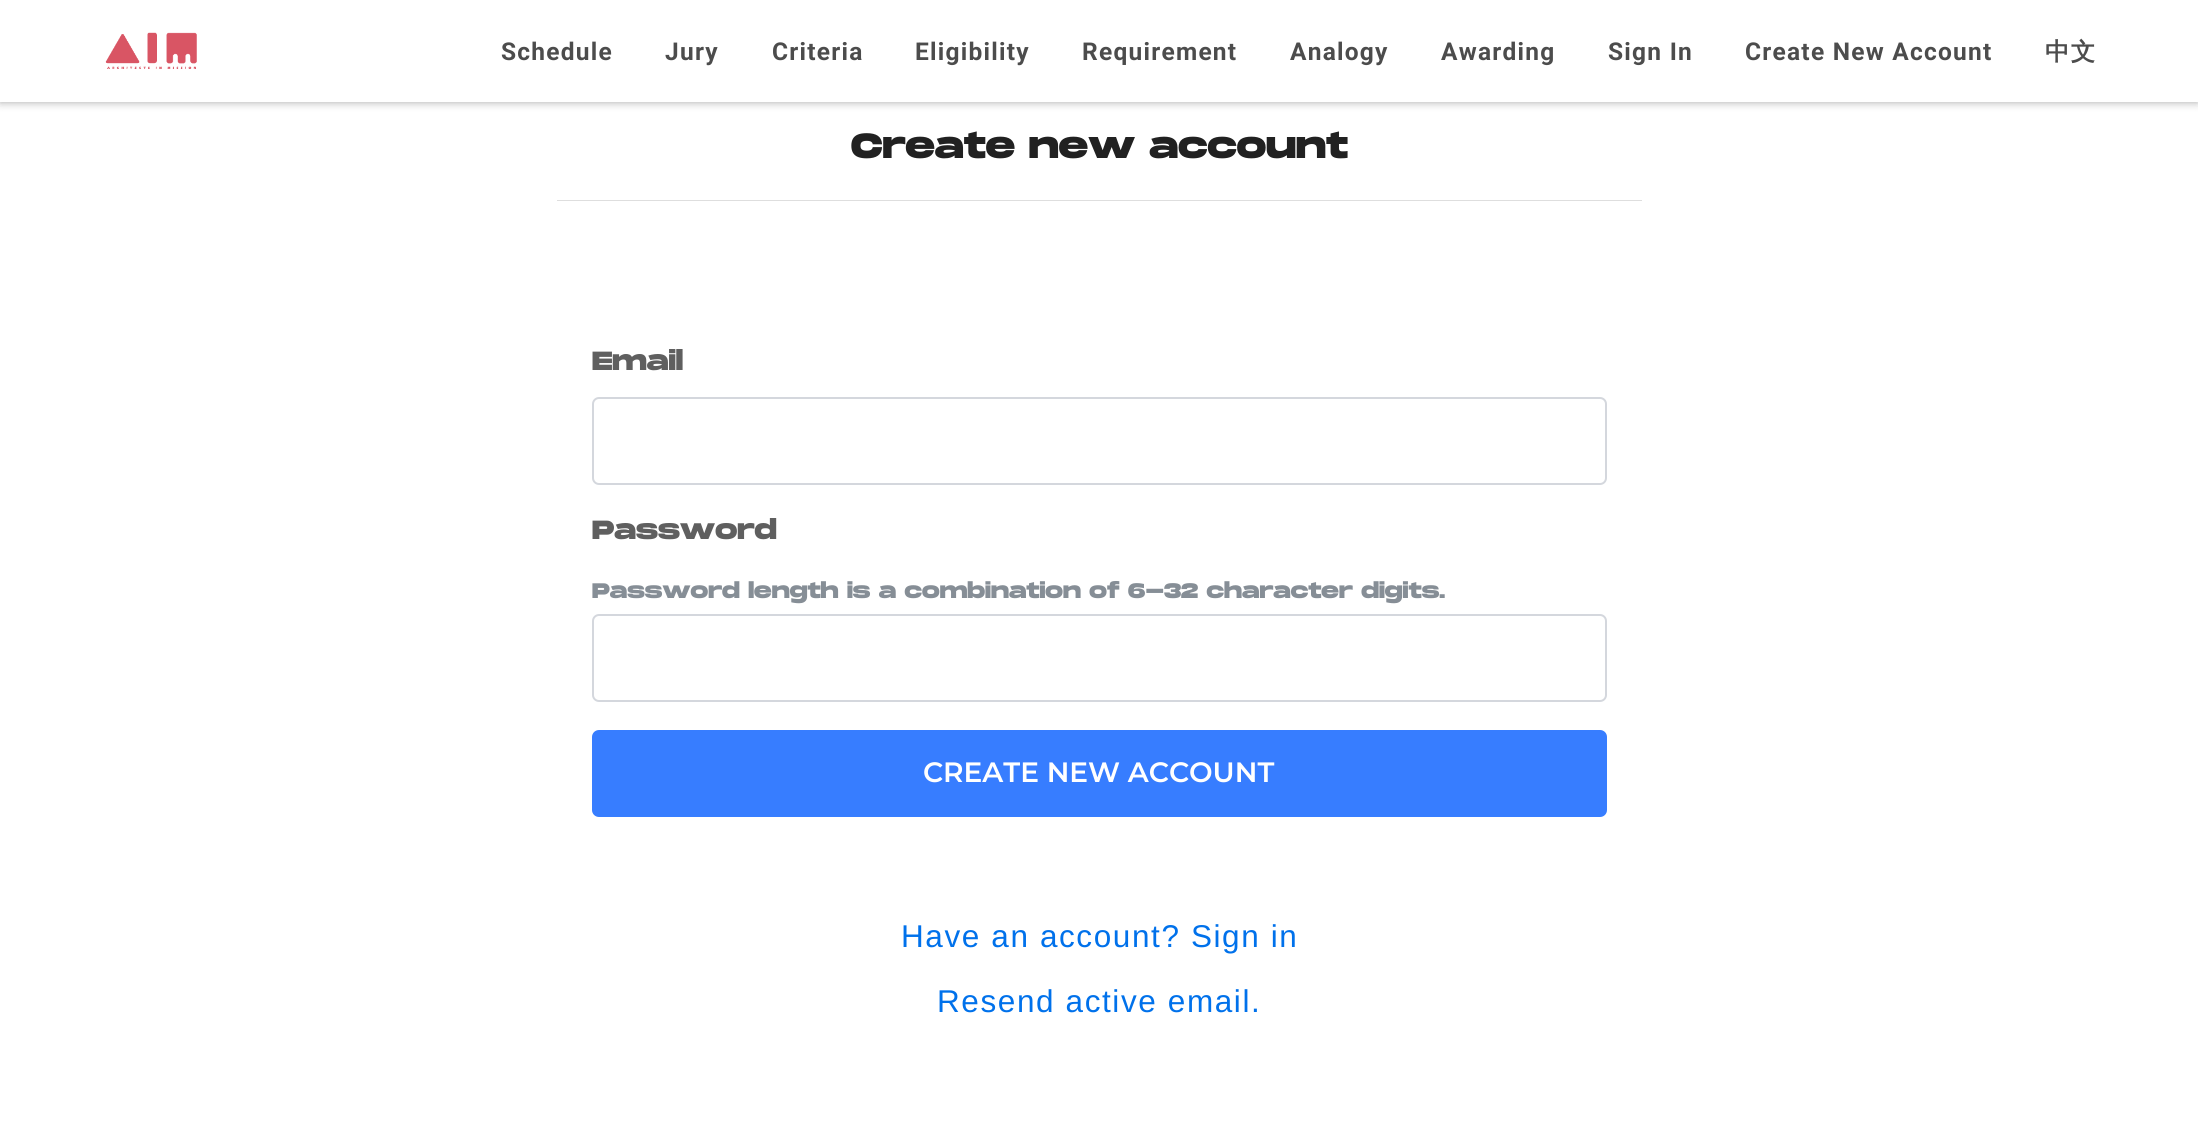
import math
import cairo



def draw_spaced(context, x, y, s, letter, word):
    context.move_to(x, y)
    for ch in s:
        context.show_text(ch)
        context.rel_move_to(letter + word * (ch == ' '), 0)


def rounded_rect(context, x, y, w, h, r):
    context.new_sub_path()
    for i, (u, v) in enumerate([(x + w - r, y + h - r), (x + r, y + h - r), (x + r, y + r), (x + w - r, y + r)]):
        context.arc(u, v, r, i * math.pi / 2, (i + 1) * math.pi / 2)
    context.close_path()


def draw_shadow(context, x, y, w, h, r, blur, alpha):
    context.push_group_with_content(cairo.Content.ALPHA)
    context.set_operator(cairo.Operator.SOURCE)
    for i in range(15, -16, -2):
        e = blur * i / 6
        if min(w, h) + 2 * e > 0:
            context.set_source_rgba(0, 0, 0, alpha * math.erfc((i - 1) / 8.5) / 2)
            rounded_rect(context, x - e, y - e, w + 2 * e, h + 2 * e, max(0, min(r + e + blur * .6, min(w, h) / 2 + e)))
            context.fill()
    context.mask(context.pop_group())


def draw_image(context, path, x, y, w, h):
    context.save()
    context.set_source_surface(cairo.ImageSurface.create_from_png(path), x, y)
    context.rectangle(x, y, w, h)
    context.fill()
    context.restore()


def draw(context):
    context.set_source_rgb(1, 1, 1)
    context.paint()
    context.set_source_rgb(0, 0, 0)
    draw_shadow(context, 0, 0, 2198, 102, 0, 4.5, 0.35)
    context.set_source_rgb(1, 1, 1)
    context.rectangle(0, 0, 2198, 102)
    context.fill()
    draw_image(context, "images/1.png", 105, 32, 92, 37)
    context.set_source_rgb(222 / 255, 222 / 255, 222 / 255)
    context.rectangle(557, 200, 1085, 1)
    context.fill()
    rounded_rect(context, 593, 398, 1013, 86, 6)
    context.set_source_rgb(212 / 255, 215 / 255, 221 / 255)
    context.stroke()
    rounded_rect(context, 593, 615, 1013, 86, 6)
    context.stroke()
    context.set_source_rgb(55 / 255, 125 / 255, 1)
    rounded_rect(context, 593, 731, 1013, 85, 6)
    context.fill_preserve()
    context.stroke()
    context.select_font_face("Roboto", cairo.FontSlant.NORMAL, cairo.FontWeight.BOLD)
    context.set_font_size(24.5)
    context.set_source_rgb(76 / 255, 76 / 255, 76 / 255)
    draw_spaced(context, 501, 60, "Schedule", 1.25, 0)
    draw_spaced(context, 665, 60, "Jury", 1.25, 0)
    draw_spaced(context, 772, 60, "Criteria", 1.25, 0)
    draw_spaced(context, 915, 60, "Eligibility", 1.25, 0)
    draw_spaced(context, 1082, 60, "Requirement", 1.25, 0)
    draw_spaced(context, 1290, 60, "Analogy", 1.25, 0)
    draw_spaced(context, 1441, 60, "Awarding", 1.25, 0)
    draw_spaced(context, 1608, 60, "Sign In", 1.25, 0)
    draw_spaced(context, 1745, 60, "Create New Account", 1.25, 0)
    context.select_font_face("WenQuanYi Zen Hei", cairo.FontSlant.NORMAL, cairo.FontWeight.BOLD)
    draw_spaced(context, 2045, 60, "中文", 1.25, 0)
    context.select_font_face("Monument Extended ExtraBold")
    context.set_font_size(35)
    context.set_source_rgb(33 / 255, 33 / 255, 33 / 255)
    context.move_to(851, 158)
    context.show_text("Create new account")
    context.set_font_size(26.25)
    context.set_source_rgb(95 / 255, 95 / 255, 95 / 255)
    context.move_to(592, 370)
    context.show_text("Email")
    context.move_to(592, 539)
    context.show_text("Password")
    context.set_font_size(21)
    context.set_source_rgb(134 / 255, 142 / 255, 150 / 255)
    context.move_to(592, 598)
    context.show_text("Password length is a combination of 6-32 character digits.")
    context.select_font_face("Montserrat SemiBold")
    context.set_font_size(28)
    context.set_source_rgb(1, 1, 1)
    context.move_to(923, 782)
    context.show_text("CREATE NEW ACCOUNT")
    context.select_font_face("Liberation Sans")
    context.set_font_size(31.5)
    context.set_source_rgb(0, 113 / 255, 235 / 255)
    draw_spaced(context, 901, 947, "Have an account? Sign in", 1.6, 0)
    draw_spaced(context, 937, 1012, "Resend active email.", 1.6, 0)


surface = cairo.ImageSurface(cairo.Format.RGB24, 2198, 1134)
context = cairo.Context(surface)
options = cairo.FontOptions()
options.set_hint_metrics(cairo.HintMetrics.OFF)
options.set_hint_style(cairo.HintStyle.NONE)
context.set_font_options(options)
context.set_miter_limit(4)
draw(context)
surface.write_to_png("out.png")
